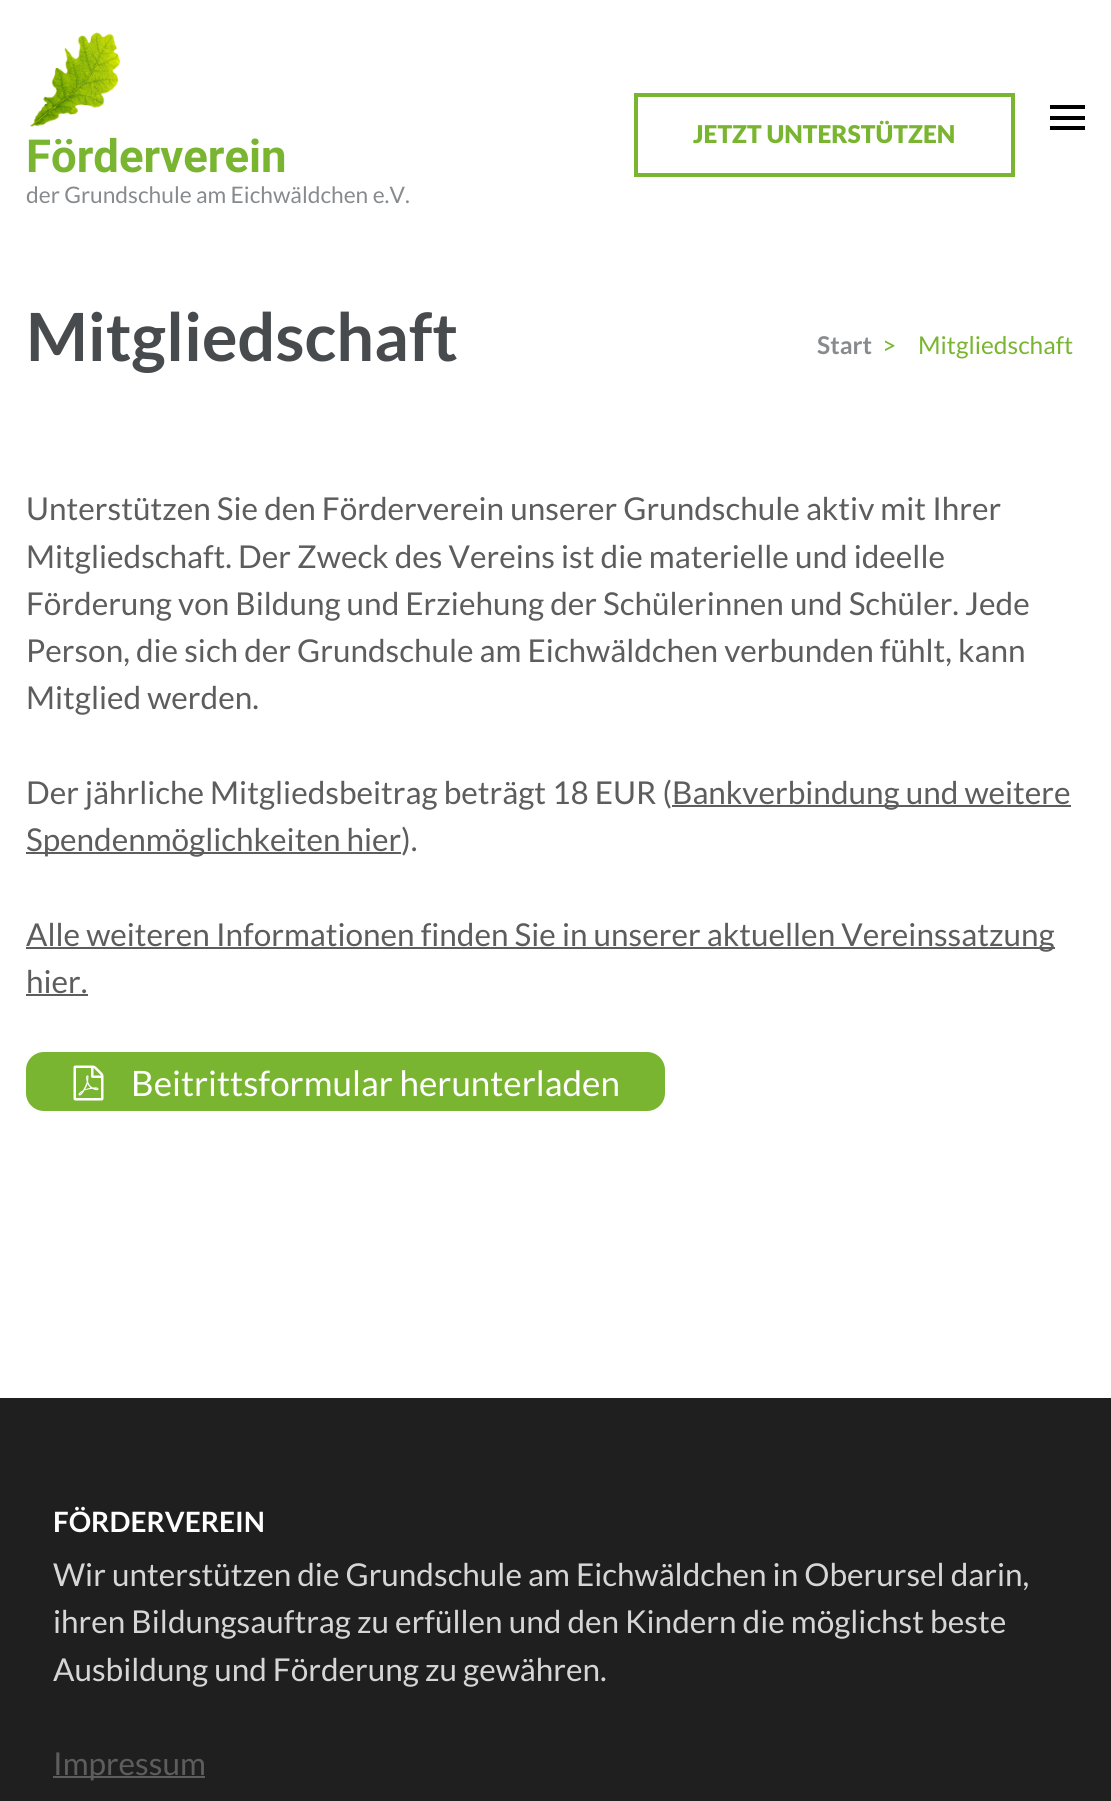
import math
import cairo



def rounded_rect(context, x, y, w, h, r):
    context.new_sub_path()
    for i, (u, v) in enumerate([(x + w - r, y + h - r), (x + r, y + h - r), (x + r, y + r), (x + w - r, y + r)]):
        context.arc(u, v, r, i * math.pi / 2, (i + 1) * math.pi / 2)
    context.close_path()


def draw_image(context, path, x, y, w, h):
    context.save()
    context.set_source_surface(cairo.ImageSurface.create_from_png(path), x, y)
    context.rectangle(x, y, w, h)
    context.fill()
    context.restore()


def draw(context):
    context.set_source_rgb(1, 1, 1)
    context.paint()
    context.rectangle(636, 95, 377, 80)
    context.set_source_rgb(121 / 255, 181 / 255, 48 / 255)
    context.set_line_width(4)
    context.stroke()
    context.set_source_rgb(0, 0, 0)
    context.rectangle(1050, 105, 35, 4)
    context.fill()
    context.rectangle(1050, 116, 35, 4)
    context.fill()
    context.rectangle(1050, 126, 35, 4)
    context.fill()
    draw_image(context, "images/1.png", 29, 32, 92, 95)
    context.set_source_rgb(93 / 255, 93 / 255, 93 / 255)
    context.rectangle(672, 805, 399, 2)
    context.fill()
    context.rectangle(26, 852, 375, 2)
    context.fill()
    context.rectangle(26, 947, 1029, 2)
    context.fill()
    context.rectangle(26, 994, 62, 2)
    context.fill()
    context.set_source_rgb(121 / 255, 181 / 255, 48 / 255)
    rounded_rect(context, 26, 1052, 639, 59, 18)
    context.fill()
    draw_image(context, "images/2.png", 73, 1065, 31, 36)
    context.set_source_rgb(31 / 255, 31 / 255, 31 / 255)
    context.rectangle(0, 1398, 1111, 403)
    context.fill()
    context.set_source_rgb(93 / 255, 93 / 255, 93 / 255)
    context.rectangle(53, 1776, 152, 2)
    context.fill()
    context.select_font_face("Lato Black")
    context.set_font_size(24.5)
    context.set_source_rgb(121 / 255, 181 / 255, 48 / 255)
    context.move_to(693, 143)
    context.show_text("JETZT UNTERSTÜTZEN")
    context.select_font_face("Roboto", cairo.FontSlant.NORMAL, cairo.FontWeight.BOLD)
    context.set_font_size(45.5)
    context.move_to(26, 172)
    context.show_text("Förderverein")
    context.select_font_face("Lato")
    context.set_font_size(22.75)
    context.set_source_rgb(135 / 255, 139 / 255, 141 / 255)
    context.move_to(26, 203)
    context.show_text("der Grundschule am Eichwäldchen e.V.")
    context.select_font_face("Lato", cairo.FontSlant.NORMAL, cairo.FontWeight.BOLD)
    context.set_font_size(66.5)
    context.set_source_rgb(71 / 255, 75 / 255, 78 / 255)
    context.move_to(26, 361)
    context.show_text("Mitgliedschaft")
    context.set_font_size(24.5)
    context.set_source_rgb(135 / 255, 139 / 255, 141 / 255)
    context.move_to(817, 354)
    context.show_text("Start")
    context.select_font_face("Lato")
    context.set_source_rgb(121 / 255, 181 / 255, 48 / 255)
    context.move_to(882, 354)
    context.show_text(">")
    context.move_to(918, 354)
    context.show_text("Mitgliedschaft")
    context.set_font_size(31.5)
    context.set_source_rgb(93 / 255, 93 / 255, 93 / 255)
    context.move_to(26, 520)
    context.show_text("Unterstützen Sie den Förderverein unserer Grundschule aktiv mit Ihrer")
    context.move_to(26, 568)
    context.show_text("Mitgliedschaft. Der Zweck des Vereins ist die materielle und ideelle")
    context.move_to(26, 615)
    context.show_text("Förderung von Bildung und Erziehung der Schülerinnen und Schüler. Jede")
    context.move_to(26, 662)
    context.show_text("Person, die sich der Grundschule am Eichwäldchen verbunden fühlt, kann")
    context.move_to(26, 709)
    context.show_text("Mitglied werden.")
    context.move_to(26, 804)
    context.show_text("Der jährliche Mitgliedsbeitrag beträgt 18 EUR (")
    context.move_to(672, 804)
    context.show_text("Bankverbindung und weitere")
    context.move_to(26, 851)
    context.show_text("Spendenmöglichkeiten hier).")
    context.move_to(26, 946)
    context.show_text("Alle weiteren Informationen finden Sie in unserer aktuellen Vereinssatzung")
    context.move_to(26, 993)
    context.show_text("hier.")
    context.set_font_size(35)
    context.set_source_rgb(1, 1, 1)
    context.move_to(131, 1096)
    context.show_text("Beitrittsformular herunterladen")
    context.select_font_face("Lato", cairo.FontSlant.NORMAL, cairo.FontWeight.BOLD)
    context.set_font_size(28)
    context.move_to(53, 1532)
    context.show_text("FÖRDERVEREIN")
    context.select_font_face("Lato")
    context.set_font_size(31.5)
    context.set_source_rgb(214 / 255, 214 / 255, 214 / 255)
    context.move_to(53, 1586)
    context.show_text("Wir unterstützen die Grundschule am Eichwäldchen in Oberursel darin,")
    context.move_to(53, 1633)
    context.show_text("ihren Bildungsauftrag zu erfüllen und den Kindern die möglichst beste")
    context.move_to(53, 1681)
    context.show_text("Ausbildung und Förderung zu gewähren.")
    context.set_source_rgb(93 / 255, 93 / 255, 93 / 255)
    context.move_to(53, 1775)
    context.show_text("Impressum")


surface = cairo.ImageSurface(cairo.Format.RGB24, 1111, 1801)
context = cairo.Context(surface)
options = cairo.FontOptions()
options.set_hint_metrics(cairo.HintMetrics.OFF)
options.set_hint_style(cairo.HintStyle.NONE)
context.set_font_options(options)
context.set_miter_limit(4)
draw(context)
surface.write_to_png("out.png")
